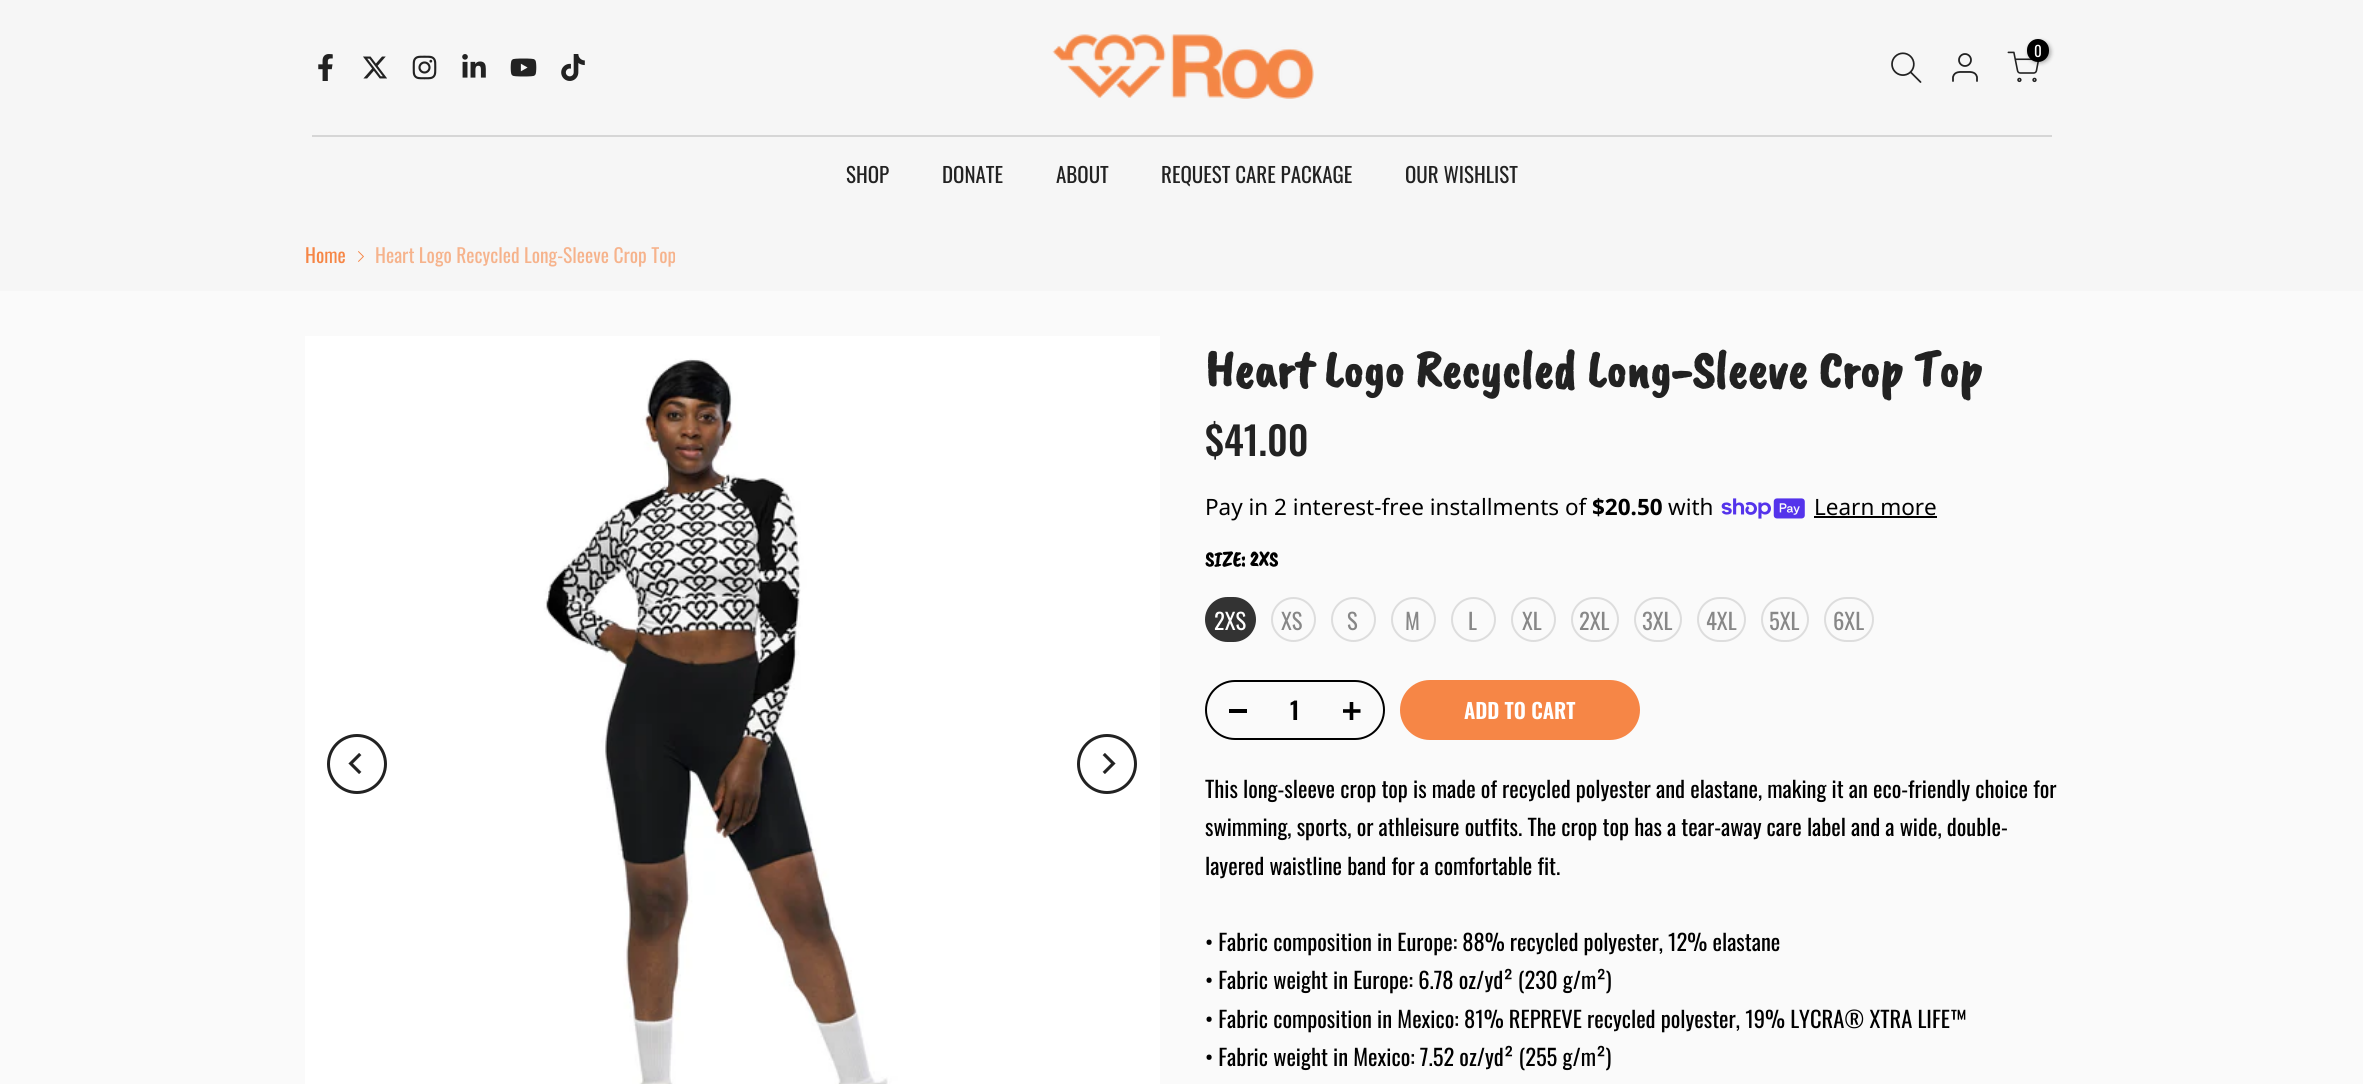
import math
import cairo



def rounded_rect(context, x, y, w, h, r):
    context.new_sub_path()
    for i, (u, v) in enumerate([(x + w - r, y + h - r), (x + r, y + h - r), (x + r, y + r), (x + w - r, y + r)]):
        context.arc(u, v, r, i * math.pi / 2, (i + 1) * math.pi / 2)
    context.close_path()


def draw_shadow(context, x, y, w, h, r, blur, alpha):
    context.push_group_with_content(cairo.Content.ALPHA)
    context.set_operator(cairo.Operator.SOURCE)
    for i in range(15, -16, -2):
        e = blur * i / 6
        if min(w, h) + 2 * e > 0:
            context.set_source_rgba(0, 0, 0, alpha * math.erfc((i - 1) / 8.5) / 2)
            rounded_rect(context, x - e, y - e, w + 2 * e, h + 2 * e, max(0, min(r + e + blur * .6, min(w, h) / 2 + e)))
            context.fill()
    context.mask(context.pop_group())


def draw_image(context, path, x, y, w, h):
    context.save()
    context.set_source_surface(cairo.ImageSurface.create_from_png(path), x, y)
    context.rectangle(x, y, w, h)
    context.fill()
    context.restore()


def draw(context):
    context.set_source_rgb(250 / 255, 250 / 255, 250 / 255)
    context.paint()
    context.set_source_rgb(246 / 255, 246 / 255, 246 / 255)
    context.rectangle(0, 0, 2363, 291)
    context.fill()
    context.set_source_rgb(214 / 255, 214 / 255, 214 / 255)
    context.rectangle(312, 135, 1740, 2)
    context.fill()
    draw_image(context, "images/1.png", 1052, 34, 262, 65)
    draw_image(context, "images/2.png", 1891, 52, 31, 31)
    context.arc(1965, 60, 6, 0, 2 * math.pi)
    context.set_source_rgb(34 / 255, 34 / 255, 34 / 255)
    context.set_line_width(1.8)
    context.stroke()
    context.new_path()
    context.move_to(1977, 81)
    context.line_to(1977, 77)
    context.curve_to(1975.5, 71, 1969.5, 72, 1965, 72)
    context.curve_to(1960.5, 72, 1954.5, 71, 1953, 77)
    context.line_to(1953, 81)
    context.set_line_cap(cairo.LineCap.ROUND)
    context.set_line_join(cairo.LineJoin.ROUND)
    context.stroke()
    draw_image(context, "images/3.png", 2007, 51, 33, 32)
    context.set_source_rgb(0, 0, 0)
    draw_shadow(context, 2028, 41, 23, 22, 11, 2, 0.3)
    context.set_source_rgb(0, 0, 0)
    rounded_rect(context, 2027, 39, 22, 23, 11)
    context.fill()
    draw_image(context, "images/4.png", 318, 54, 15, 27)
    draw_image(context, "images/5.png", 363, 56, 24, 23)
    draw_image(context, "images/6.png", 412, 55, 25, 25)
    draw_image(context, "images/7.png", 462, 54, 24, 24)
    draw_image(context, "images/8.png", 510, 58, 27, 19)
    draw_image(context, "images/9.png", 561, 54, 24, 27)
    draw_image(context, "images/10.png", 358, 251, 6, 11)
    draw_image(context, "images/11.png", 305, 336, 855, 748)
    context.arc(357, 764, 28.5, 0, 2 * math.pi)
    context.set_source_rgb(34 / 255, 34 / 255, 34 / 255)
    context.set_line_width(3)
    context.set_line_cap(cairo.LineCap.BUTT)
    context.set_line_join(cairo.LineJoin.MITER)
    context.stroke()
    draw_image(context, "images/12.png", 348, 753, 14, 21)
    context.arc(1107, 764, 28.5, 0, 2 * math.pi)
    context.stroke()
    draw_image(context, "images/13.png", 1102, 753, 14, 21)
    draw_image(context, "images/14.png", 1721, 498, 84, 21)
    context.set_source_rgb(0, 0, 0)
    context.rectangle(1814, 516, 123, 2)
    context.fill()
    context.set_source_rgb(51 / 255, 51 / 255, 51 / 255)
    rounded_rect(context, 1206, 598, 49, 43, 21.5)
    context.fill_preserve()
    context.set_line_width(2)
    context.stroke()
    context.arc(1293.5, 619.5, 21.5, 0, 2 * math.pi)
    context.set_source_rgb(221 / 255, 221 / 255, 221 / 255)
    context.stroke()
    context.arc(1353.5, 619.5, 21.5, 0, 2 * math.pi)
    context.stroke()
    context.arc(1413.5, 619.5, 21.5, 0, 2 * math.pi)
    context.stroke()
    context.arc(1473.5, 619.5, 21.5, 0, 2 * math.pi)
    context.stroke()
    context.arc(1533.5, 619.5, 21.5, 0, 2 * math.pi)
    context.stroke()
    rounded_rect(context, 1572, 598, 46, 43, 21.5)
    context.stroke()
    rounded_rect(context, 1635, 598, 46, 43, 21.5)
    context.stroke()
    rounded_rect(context, 1698, 598, 47, 43, 21.5)
    context.stroke()
    rounded_rect(context, 1762, 598, 46, 43, 21.5)
    context.stroke()
    rounded_rect(context, 1825, 598, 48, 43, 21.5)
    context.stroke()
    rounded_rect(context, 1206, 681, 178, 58, 29)
    context.set_source_rgb(0, 0, 0)
    context.stroke()
    context.rectangle(1229, 709, 18, 4)
    context.fill()
    draw_image(context, "images/15.png", 1343, 702, 18, 18)
    context.set_source_rgb(246 / 255, 134 / 255, 70 / 255)
    rounded_rect(context, 1400, 680, 240, 60, 30)
    context.fill()
    context.select_font_face("Oswald")
    context.set_font_size(15)
    context.set_source_rgb(1, 1, 1)
    context.move_to(2034, 57)
    context.show_text("0")
    context.set_font_size(21)
    context.set_source_rgb(34 / 255, 34 / 255, 34 / 255)
    context.move_to(846, 183)
    context.show_text("SHOP")
    context.move_to(942, 183)
    context.show_text("DONATE")
    context.move_to(1056, 183)
    context.show_text("ABOUT")
    context.move_to(1161, 183)
    context.show_text("REQUEST CARE PACKAGE")
    context.move_to(1405, 183)
    context.show_text("OUR WISHLIST")
    context.set_font_size(19.5)
    context.set_source_rgb(246 / 255, 134 / 255, 70 / 255)
    context.move_to(305, 263)
    context.show_text("Home")
    context.set_source_rgb(246 / 255, 179 / 255, 140 / 255)
    context.move_to(375, 263)
    context.show_text("Heart Logo Recycled Long-Sleeve Crop Top")
    context.select_font_face("Caveat Brush", cairo.FontSlant.NORMAL, cairo.FontWeight.BOLD)
    context.set_font_size(52.5)
    context.set_source_rgb(34 / 255, 34 / 255, 34 / 255)
    context.move_to(1205, 387)
    context.show_text("Heart Logo Recycled Long-Sleeve Crop Top")
    context.select_font_face("Oswald Medium")
    context.set_font_size(39)
    context.move_to(1205, 456)
    context.show_text("$41.00")
    context.select_font_face("Noto Sans")
    context.set_font_size(22.5)
    context.set_source_rgb(0, 0, 0)
    context.move_to(1205, 515)
    context.show_text("Pay in 2 interest-free installments of")
    context.select_font_face("Noto Sans", cairo.FontSlant.NORMAL, cairo.FontWeight.BOLD)
    context.move_to(1592, 515)
    context.show_text("$20.50")
    context.select_font_face("Noto Sans")
    context.move_to(1668, 515)
    context.show_text("with")
    context.move_to(1814, 515)
    context.show_text("Learn more")
    context.select_font_face("Caveat Brush", cairo.FontSlant.NORMAL, cairo.FontWeight.BOLD)
    context.set_font_size(21)
    context.move_to(1205, 566)
    context.show_text("SIZE: 2XS")
    context.select_font_face("Oswald")
    context.set_font_size(22.5)
    context.set_source_rgb(1, 1, 1)
    context.move_to(1214, 630)
    context.show_text("2XS")
    context.set_source_rgb(135 / 255, 135 / 255, 135 / 255)
    context.move_to(1281, 630)
    context.show_text("XS")
    context.move_to(1347, 630)
    context.show_text("S")
    context.move_to(1405, 630)
    context.show_text("M")
    context.move_to(1468, 630)
    context.show_text("L")
    context.move_to(1522, 630)
    context.show_text("XL")
    context.move_to(1579, 630)
    context.show_text("2XL")
    context.move_to(1642, 630)
    context.show_text("3XL")
    context.move_to(1706, 630)
    context.show_text("4XL")
    context.move_to(1769, 630)
    context.show_text("5XL")
    context.move_to(1833, 630)
    context.show_text("6XL")
    context.select_font_face("Oswald SemiBold")
    context.set_font_size(24)
    context.set_source_rgb(0, 0, 0)
    context.move_to(1290, 720)
    context.show_text("1")
    context.set_font_size(21)
    context.set_source_rgb(1, 1, 1)
    context.move_to(1464, 719)
    context.show_text("ADD TO CART")
    context.select_font_face("Oswald")
    context.set_font_size(22.5)
    context.set_source_rgb(0, 0, 0)
    context.move_to(1205, 798)
    context.show_text("This long-sleeve crop top is made of recycled polyester and elastane, making it an eco-friendly choice for")
    context.move_to(1205, 836)
    context.show_text("swimming, sports, or athleisure outfits. The crop top has a tear-away care label and a wide, double-")
    context.move_to(1205, 875)
    context.show_text("layered waistline band for a comfortable fit.")
    context.move_to(1205, 951)
    context.show_text("• Fabric composition in Europe: 88% recycled polyester, 12% elastane")
    context.move_to(1205, 989)
    context.show_text("• Fabric weight in Europe: 6.78 oz/yd² (230 g/m²)")
    context.move_to(1205, 1028)
    context.show_text("• Fabric composition in Mexico: 81% REPREVE recycled polyester, 19% LYCRA® XTRA LIFE™")
    context.move_to(1205, 1066)
    context.show_text("• Fabric weight in Mexico: 7.52 oz/yd² (255 g/m²)")


surface = cairo.ImageSurface(cairo.Format.RGB24, 2363, 1084)
context = cairo.Context(surface)
options = cairo.FontOptions()
options.set_hint_metrics(cairo.HintMetrics.OFF)
options.set_hint_style(cairo.HintStyle.NONE)
context.set_font_options(options)
context.set_miter_limit(4)
draw(context)
surface.write_to_png("out.png")
